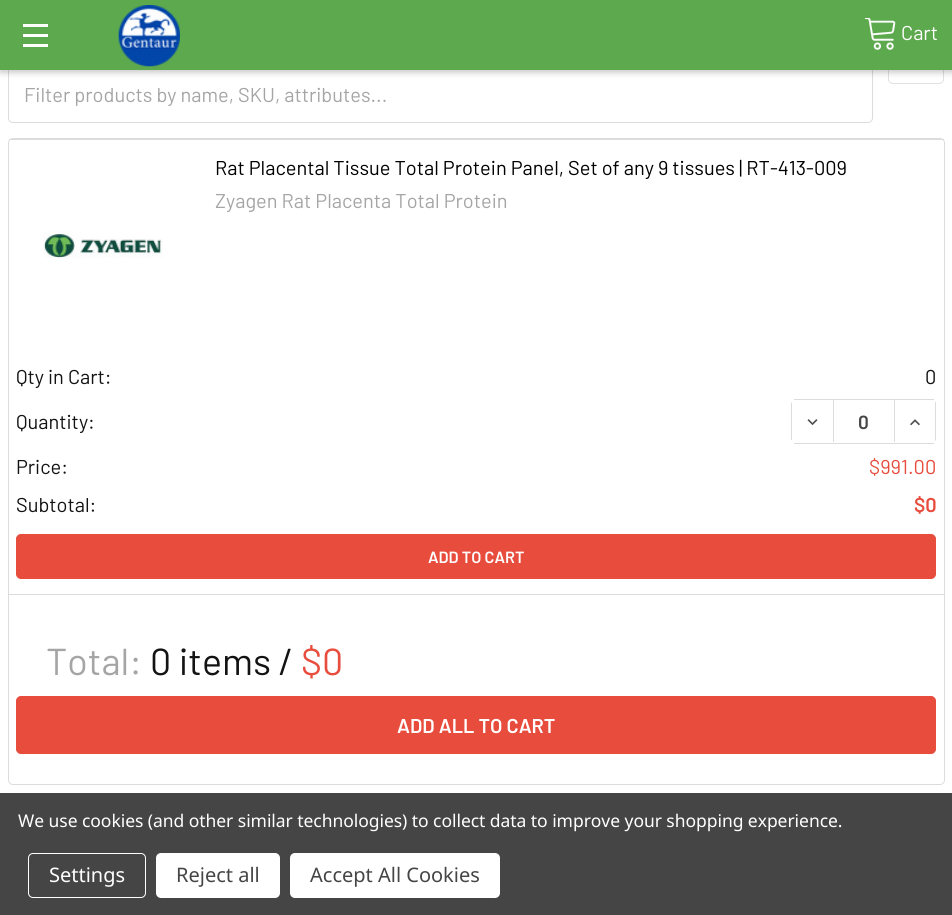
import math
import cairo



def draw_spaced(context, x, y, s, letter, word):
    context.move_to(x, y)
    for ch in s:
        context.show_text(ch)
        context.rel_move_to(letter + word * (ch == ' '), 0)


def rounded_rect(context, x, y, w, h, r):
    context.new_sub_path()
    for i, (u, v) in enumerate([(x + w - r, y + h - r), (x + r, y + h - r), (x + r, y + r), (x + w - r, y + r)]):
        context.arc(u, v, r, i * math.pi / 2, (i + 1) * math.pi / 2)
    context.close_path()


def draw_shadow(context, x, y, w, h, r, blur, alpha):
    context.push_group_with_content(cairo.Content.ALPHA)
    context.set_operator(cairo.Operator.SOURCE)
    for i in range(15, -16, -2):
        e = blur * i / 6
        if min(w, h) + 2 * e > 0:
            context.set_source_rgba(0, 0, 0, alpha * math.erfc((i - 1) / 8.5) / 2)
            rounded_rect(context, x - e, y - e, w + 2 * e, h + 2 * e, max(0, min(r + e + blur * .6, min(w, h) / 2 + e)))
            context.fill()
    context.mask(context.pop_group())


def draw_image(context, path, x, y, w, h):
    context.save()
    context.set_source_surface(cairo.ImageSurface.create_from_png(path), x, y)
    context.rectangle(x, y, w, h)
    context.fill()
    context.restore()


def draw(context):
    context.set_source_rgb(1, 1, 1)
    context.paint()
    rounded_rect(context, 888.5, 23.5, 55, 60, 4.5)
    context.set_source_rgb(224 / 255, 225 / 255, 228 / 255)
    context.set_line_width(1)
    context.stroke()
    rounded_rect(context, 8.5, 65.5, 864, 57, 4.5)
    context.set_source_rgb(220 / 255, 220 / 255, 220 / 255)
    context.stroke()
    context.set_source_rgb(1, 1, 1)
    rounded_rect(context, 9, 66, 862, 55, 5)
    context.fill()
    context.set_source_rgb(0, 0, 0)
    draw_shadow(context, 0, 3, 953, 70, 0, 3, 0.2)
    context.set_source_rgb(93 / 255, 169 / 255, 78 / 255)
    context.rectangle(0, 0, 952, 70)
    context.fill()
    context.set_source_rgb(1, 1, 1)
    context.rectangle(23, 34, 25, 3)
    context.fill()
    context.rectangle(23, 24, 25, 3)
    context.fill()
    context.rectangle(23, 44, 25, 3)
    context.fill()
    draw_image(context, "images/1.png", 118, 5, 62, 62)
    draw_image(context, "images/2.png", 864, 18, 32, 32)
    rounded_rect(context, 8.5, 138.5, 936, 646, 4.5)
    context.set_source_rgb(220 / 255, 220 / 255, 220 / 255)
    context.stroke()
    context.rectangle(9, 139, 935, 1)
    context.fill()
    draw_image(context, "images/3.png", 43, 231, 120, 27)
    context.rectangle(794, 399, 140, 1)
    context.fill()
    context.rectangle(794, 443, 140, 1)
    context.fill()
    context.rectangle(833, 400, 1, 42)
    context.fill()
    context.new_path()
    context.move_to(792, 402)
    context.line_to(792, 440.5)
    context.curve_to(791.5, 440, 791, 439.5, 791, 439)
    context.line_to(791, 404)
    context.curve_to(791, 403, 791.5, 402.5, 792, 402)
    context.close_path()
    context.fill()
    draw_image(context, "images/4.png", 807, 419, 11, 7)
    context.new_path()
    context.move_to(936, 440)
    context.line_to(935, 441)
    context.line_to(935, 401.5)
    context.line_to(936, 402.5)
    context.close_path()
    context.fill()
    context.rectangle(894, 400, 1, 42)
    context.fill()
    draw_image(context, "images/5.png", 910, 419, 10, 7)
    context.set_source_rgb(231 / 255, 76 / 255, 60 / 255)
    rounded_rect(context, 16.5, 534.5, 919, 44, 4.5)
    context.fill_preserve()
    context.stroke()
    context.set_source_rgb(220 / 255, 220 / 255, 220 / 255)
    context.rectangle(9, 594, 935, 1)
    context.fill()
    context.set_source_rgb(231 / 255, 76 / 255, 60 / 255)
    rounded_rect(context, 16.5, 696.5, 919, 57, 4.5)
    context.fill_preserve()
    context.stroke()
    context.set_source_rgb(69 / 255, 69 / 255, 69 / 255)
    context.rectangle(0, 793, 952, 122)
    context.fill()
    rounded_rect(context, 28.5, 853.5, 117, 44, 4.5)
    context.set_source_rgb(1, 1, 1)
    context.stroke()
    rounded_rect(context, 156, 853, 124, 45, 5)
    context.fill()
    rounded_rect(context, 290, 853, 210, 45, 5)
    context.fill()
    context.select_font_face("Barlow")
    context.set_font_size(20)
    context.move_to(901, 40)
    context.show_text("Cart")
    context.set_source_rgb(165 / 255, 165 / 255, 165 / 255)
    context.move_to(24, 102)
    context.show_text("Filter products by name, SKU, attributes...")
    context.set_source_rgb(0, 0, 0)
    context.move_to(215, 175)
    context.show_text("Rat Placental Tissue Total Protein Panel, Set of any 9 tissues | RT-413-009")
    context.set_source_rgb(165 / 255, 165 / 255, 165 / 255)
    context.move_to(215, 208)
    context.show_text("Zyagen Rat Placenta Total Protein")
    context.set_source_rgb(19 / 255, 19 / 255, 19 / 255)
    context.move_to(16, 384)
    context.show_text("Qty in Cart:")
    context.move_to(925, 384)
    context.show_text("0")
    context.move_to(16, 429)
    context.show_text("Quantity:")
    context.select_font_face("Barlow SemiBold")
    context.set_font_size(19)
    context.set_source_rgb(69 / 255, 69 / 255, 69 / 255)
    context.move_to(858, 429)
    context.show_text("0")
    context.select_font_face("Barlow")
    context.set_font_size(20)
    context.set_source_rgb(19 / 255, 19 / 255, 19 / 255)
    context.move_to(16, 474)
    context.show_text("Price:")
    context.set_source_rgb(231 / 255, 76 / 255, 60 / 255)
    context.move_to(869, 474)
    context.show_text("$991.00")
    context.set_source_rgb(19 / 255, 19 / 255, 19 / 255)
    context.move_to(16, 512)
    context.show_text("Subtotal:")
    context.select_font_face("Barlow SemiBold")
    context.set_source_rgb(231 / 255, 76 / 255, 60 / 255)
    context.move_to(914, 512)
    context.show_text("$0")
    context.set_font_size(16.25)
    context.set_source_rgb(1, 1, 1)
    context.move_to(428, 563)
    context.show_text("ADD TO CART")
    context.select_font_face("Barlow")
    context.set_font_size(37.5)
    context.set_source_rgb(165 / 255, 165 / 255, 165 / 255)
    context.move_to(46, 675)
    context.show_text("Total:")
    context.set_source_rgb(19 / 255, 19 / 255, 19 / 255)
    context.move_to(150, 675)
    context.show_text("0 items /")
    context.set_source_rgb(231 / 255, 76 / 255, 60 / 255)
    context.move_to(301, 675)
    context.show_text("$0")
    context.select_font_face("Barlow SemiBold")
    context.set_font_size(20)
    context.set_source_rgb(1, 1, 1)
    context.move_to(397, 733)
    context.show_text("ADD ALL TO CART")
    context.select_font_face("Noto Sans")
    context.set_font_size(17.5)
    draw_spaced(context, 18, 827, "We use cookies (and other similar technologies) to collect data to improve your shopping experience.", -0.05, 0)
    context.set_font_size(20)
    context.move_to(49, 882)
    context.show_text("Settings")
    context.set_source_rgb(69 / 255, 69 / 255, 69 / 255)
    context.move_to(176, 882)
    context.show_text("Reject all")
    context.move_to(310, 882)
    context.show_text("Accept All Cookies")


surface = cairo.ImageSurface(cairo.Format.RGB24, 952, 915)
context = cairo.Context(surface)
options = cairo.FontOptions()
options.set_hint_metrics(cairo.HintMetrics.OFF)
options.set_hint_style(cairo.HintStyle.NONE)
context.set_font_options(options)
context.set_miter_limit(4)
draw(context)
surface.write_to_png("out.png")
